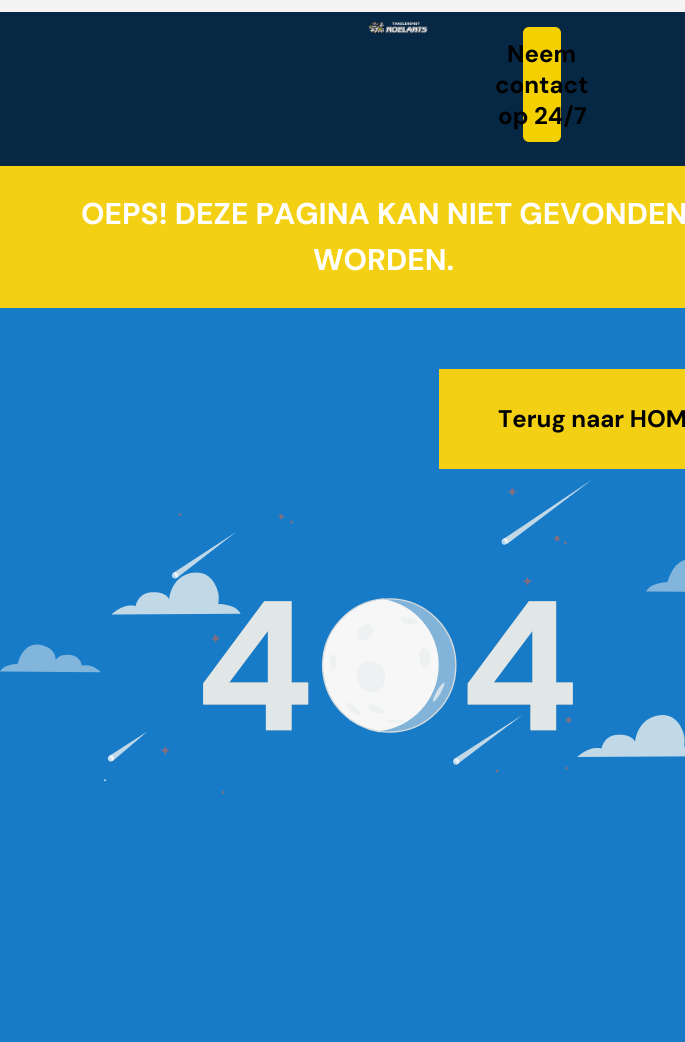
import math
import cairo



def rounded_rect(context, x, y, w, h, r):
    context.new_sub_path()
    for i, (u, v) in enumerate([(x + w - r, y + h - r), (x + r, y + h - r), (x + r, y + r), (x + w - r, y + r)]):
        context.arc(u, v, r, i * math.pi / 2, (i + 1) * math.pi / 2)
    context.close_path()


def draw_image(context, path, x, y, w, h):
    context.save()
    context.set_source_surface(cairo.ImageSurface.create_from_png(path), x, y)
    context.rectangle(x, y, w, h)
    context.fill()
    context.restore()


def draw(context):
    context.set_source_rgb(244 / 255, 244 / 255, 244 / 255)
    context.paint()
    context.set_source_rgb(7 / 255, 40 / 255, 69 / 255)
    context.rectangle(0, 12, 685, 154)
    context.fill()
    draw_image(context, "images/1.png", 368, 21, 60, 13)
    context.set_source_rgb(244 / 255, 208 / 255, 0)
    rounded_rect(context, 523, 27, 38, 115, 6)
    context.fill()
    context.set_source_rgb(243 / 255, 208 / 255, 19 / 255)
    context.rectangle(0, 166, 685, 142)
    context.fill()
    context.set_source_rgb(23 / 255, 123 / 255, 200 / 255)
    context.rectangle(0, 308, 685, 734)
    context.fill()
    context.set_source_rgb(243 / 255, 208 / 255, 19 / 255)
    context.rectangle(439, 369, 246, 100)
    context.fill()
    draw_image(context, "images/2.png", 0, 479, 685, 315)
    context.select_font_face("DM Sans", cairo.FontSlant.NORMAL, cairo.FontWeight.BOLD)
    context.set_font_size(24)
    context.set_source_rgb(0, 0, 0)
    context.move_to(507, 62)
    context.show_text("Neem")
    context.move_to(495, 93)
    context.show_text("contact")
    context.move_to(498, 124)
    context.show_text("op 24/7")
    context.set_font_size(30)
    context.set_source_rgb(1, 1, 1)
    context.move_to(81, 224)
    context.show_text("OEPS! DEZE PAGINA KAN NIET GEVONDEN")
    context.move_to(313, 270)
    context.show_text("WORDEN.")
    context.set_font_size(24)
    context.set_source_rgb(0, 0, 0)
    context.move_to(498, 427)
    context.show_text("Terug naar HOM")


surface = cairo.ImageSurface(cairo.Format.RGB24, 685, 1042)
context = cairo.Context(surface)
options = cairo.FontOptions()
options.set_hint_metrics(cairo.HintMetrics.OFF)
options.set_hint_style(cairo.HintStyle.NONE)
context.set_font_options(options)
context.set_miter_limit(4)
draw(context)
surface.write_to_png("out.png")
